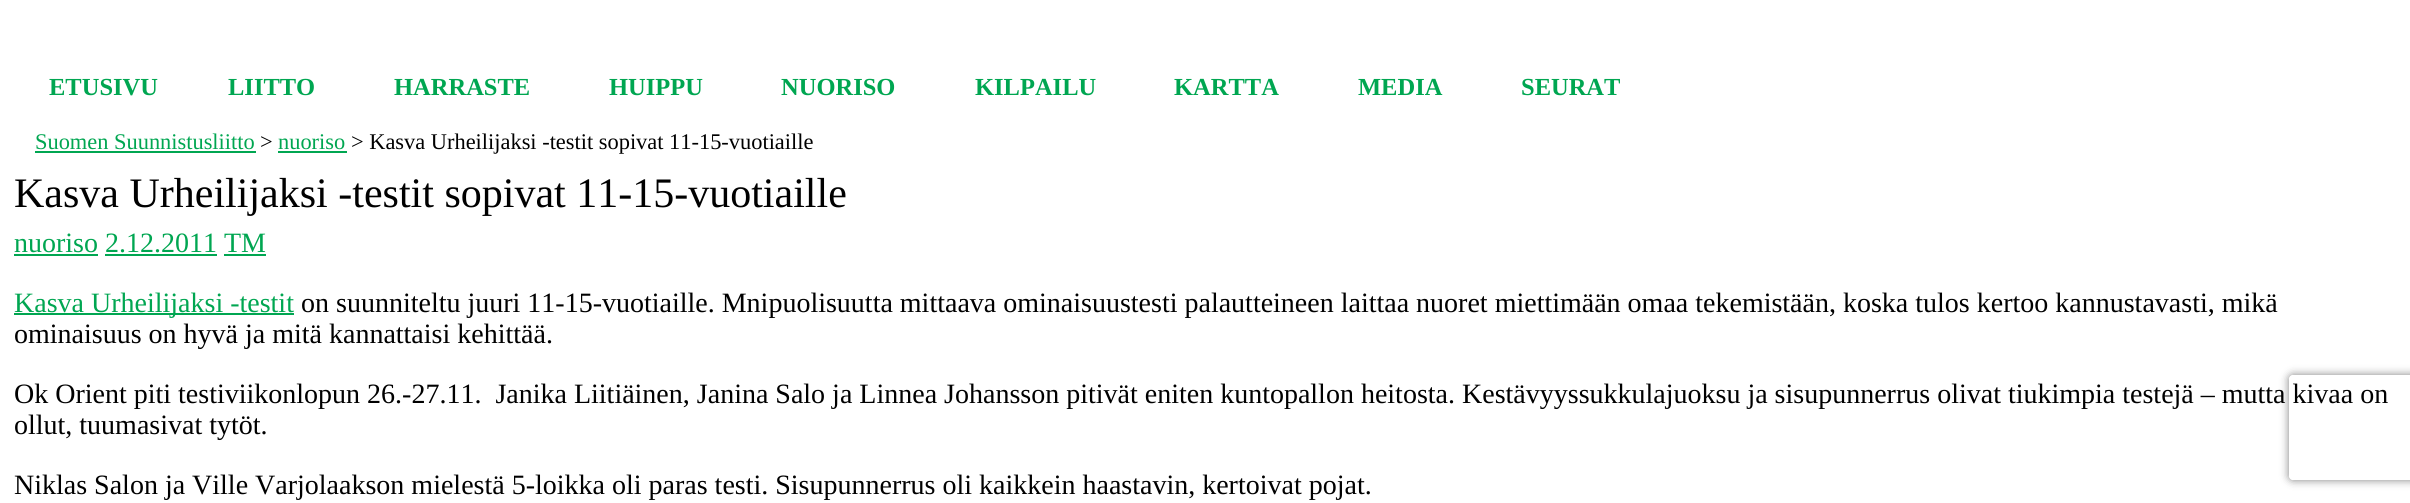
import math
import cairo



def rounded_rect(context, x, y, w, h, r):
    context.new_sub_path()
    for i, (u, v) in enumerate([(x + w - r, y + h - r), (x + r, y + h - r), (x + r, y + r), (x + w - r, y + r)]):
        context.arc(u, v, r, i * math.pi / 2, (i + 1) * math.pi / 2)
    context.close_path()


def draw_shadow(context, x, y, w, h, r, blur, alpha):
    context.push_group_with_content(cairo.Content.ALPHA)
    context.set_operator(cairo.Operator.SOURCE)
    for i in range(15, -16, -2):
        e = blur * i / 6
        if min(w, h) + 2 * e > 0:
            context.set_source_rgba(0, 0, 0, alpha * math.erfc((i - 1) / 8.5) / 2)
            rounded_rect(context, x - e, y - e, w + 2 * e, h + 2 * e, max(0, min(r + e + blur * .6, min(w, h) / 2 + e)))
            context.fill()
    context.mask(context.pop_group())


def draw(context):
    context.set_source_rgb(1, 1, 1)
    context.paint()
    context.set_source_rgb(0, 166 / 255, 81 / 255)
    context.rectangle(35, 151, 221, 2)
    context.fill()
    context.rectangle(278, 151, 69, 2)
    context.fill()
    context.rectangle(14, 254, 84, 2)
    context.fill()
    context.rectangle(105, 254, 112, 2)
    context.fill()
    context.rectangle(224, 254, 42, 2)
    context.fill()
    context.rectangle(14, 313, 280, 2)
    context.fill()
    context.save()
    context.set_fill_rule(cairo.FillRule.EVEN_ODD)
    context.new_path()
    context.move_to(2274, 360)
    context.line_to(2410, 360)
    context.line_to(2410, 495)
    context.line_to(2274, 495)
    context.close_path()
    context.move_to(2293, 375)
    context.line_to(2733, 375)
    context.curve_to(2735, 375, 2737, 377, 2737, 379)
    context.line_to(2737, 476)
    context.curve_to(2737, 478, 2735, 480, 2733, 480)
    context.line_to(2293, 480)
    context.curve_to(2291, 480, 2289, 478, 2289, 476)
    context.line_to(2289, 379)
    context.curve_to(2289, 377, 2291, 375, 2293, 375)
    context.close_path()
    context.clip()
    context.set_source_rgb(128 / 255, 128 / 255, 128 / 255)
    draw_shadow(context, 2289, 375, 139, 105, 4, 4.5, 1)
    context.restore()
    context.select_font_face("Liberation Serif", cairo.FontSlant.NORMAL, cairo.FontWeight.BOLD)
    context.set_font_size(24.5)
    context.move_to(49, 95)
    context.show_text("ETUSIVU")
    context.move_to(228, 95)
    context.show_text("LIITTO")
    context.move_to(394, 95)
    context.show_text("HARRASTE")
    context.move_to(609, 95)
    context.show_text("HUIPPU")
    context.move_to(781, 95)
    context.show_text("NUORISO")
    context.move_to(975, 95)
    context.show_text("KILPAILU")
    context.move_to(1174, 95)
    context.show_text("KARTTA")
    context.move_to(1358, 95)
    context.show_text("MEDIA")
    context.move_to(1521, 95)
    context.show_text("SEURAT")
    context.select_font_face("Liberation Serif")
    context.set_font_size(22.4)
    context.move_to(35, 149)
    context.show_text("Suomen Suunnistusliitto")
    context.set_source_rgb(0, 0, 0)
    context.move_to(260, 149)
    context.show_text(">")
    context.set_source_rgb(0, 166 / 255, 81 / 255)
    context.move_to(278, 149)
    context.show_text("nuoriso")
    context.set_source_rgb(0, 0, 0)
    context.move_to(351, 149)
    context.show_text("> Kasva Urheilijaksi -testit sopivat 11-15-vuotiaille")
    context.set_font_size(42)
    context.move_to(14, 207)
    context.show_text("Kasva Urheilijaksi -testit sopivat 11-15-vuotiaille")
    context.set_font_size(28)
    context.set_source_rgb(0, 166 / 255, 81 / 255)
    context.move_to(14, 252)
    context.show_text("nuoriso 2.12.2011 TM")
    context.move_to(14, 312)
    context.show_text("Kasva Urheilijaksi -testit")
    context.set_source_rgb(0, 0, 0)
    context.move_to(301, 312)
    context.show_text("on suunniteltu juuri 11-15-vuotiaille. Mnipuolisuutta mittaava ominaisuustesti palautteineen laittaa nuoret miettimään omaa tekemistään, koska tulos kertoo kannustavasti, mikä")
    context.move_to(14, 343)
    context.show_text("ominaisuus on hyvä ja mitä kannattaisi kehittää.")
    context.move_to(14, 403)
    context.show_text("Ok Orient piti testiviikonlopun 26.-27.11.  Janika Liitiäinen, Janina Salo ja Linnea Johansson pitivät eniten kuntopallon heitosta. Kestävyyssukkulajuoksu ja sisupunnerrus olivat tiukimpia testejä – mutta kivaa on")
    context.move_to(14, 434)
    context.show_text("ollut, tuumasivat tytöt.")
    context.move_to(14, 494)
    context.show_text("Niklas Salon ja Ville Varjolaakson mielestä 5-loikka oli paras testi. Sisupunnerrus oli kaikkein haastavin, kertoivat pojat.")


surface = cairo.ImageSurface(cairo.Format.RGB24, 2410, 503)
context = cairo.Context(surface)
options = cairo.FontOptions()
options.set_hint_metrics(cairo.HintMetrics.OFF)
options.set_hint_style(cairo.HintStyle.NONE)
context.set_font_options(options)
context.set_miter_limit(4)
draw(context)
surface.write_to_png("out.png")
